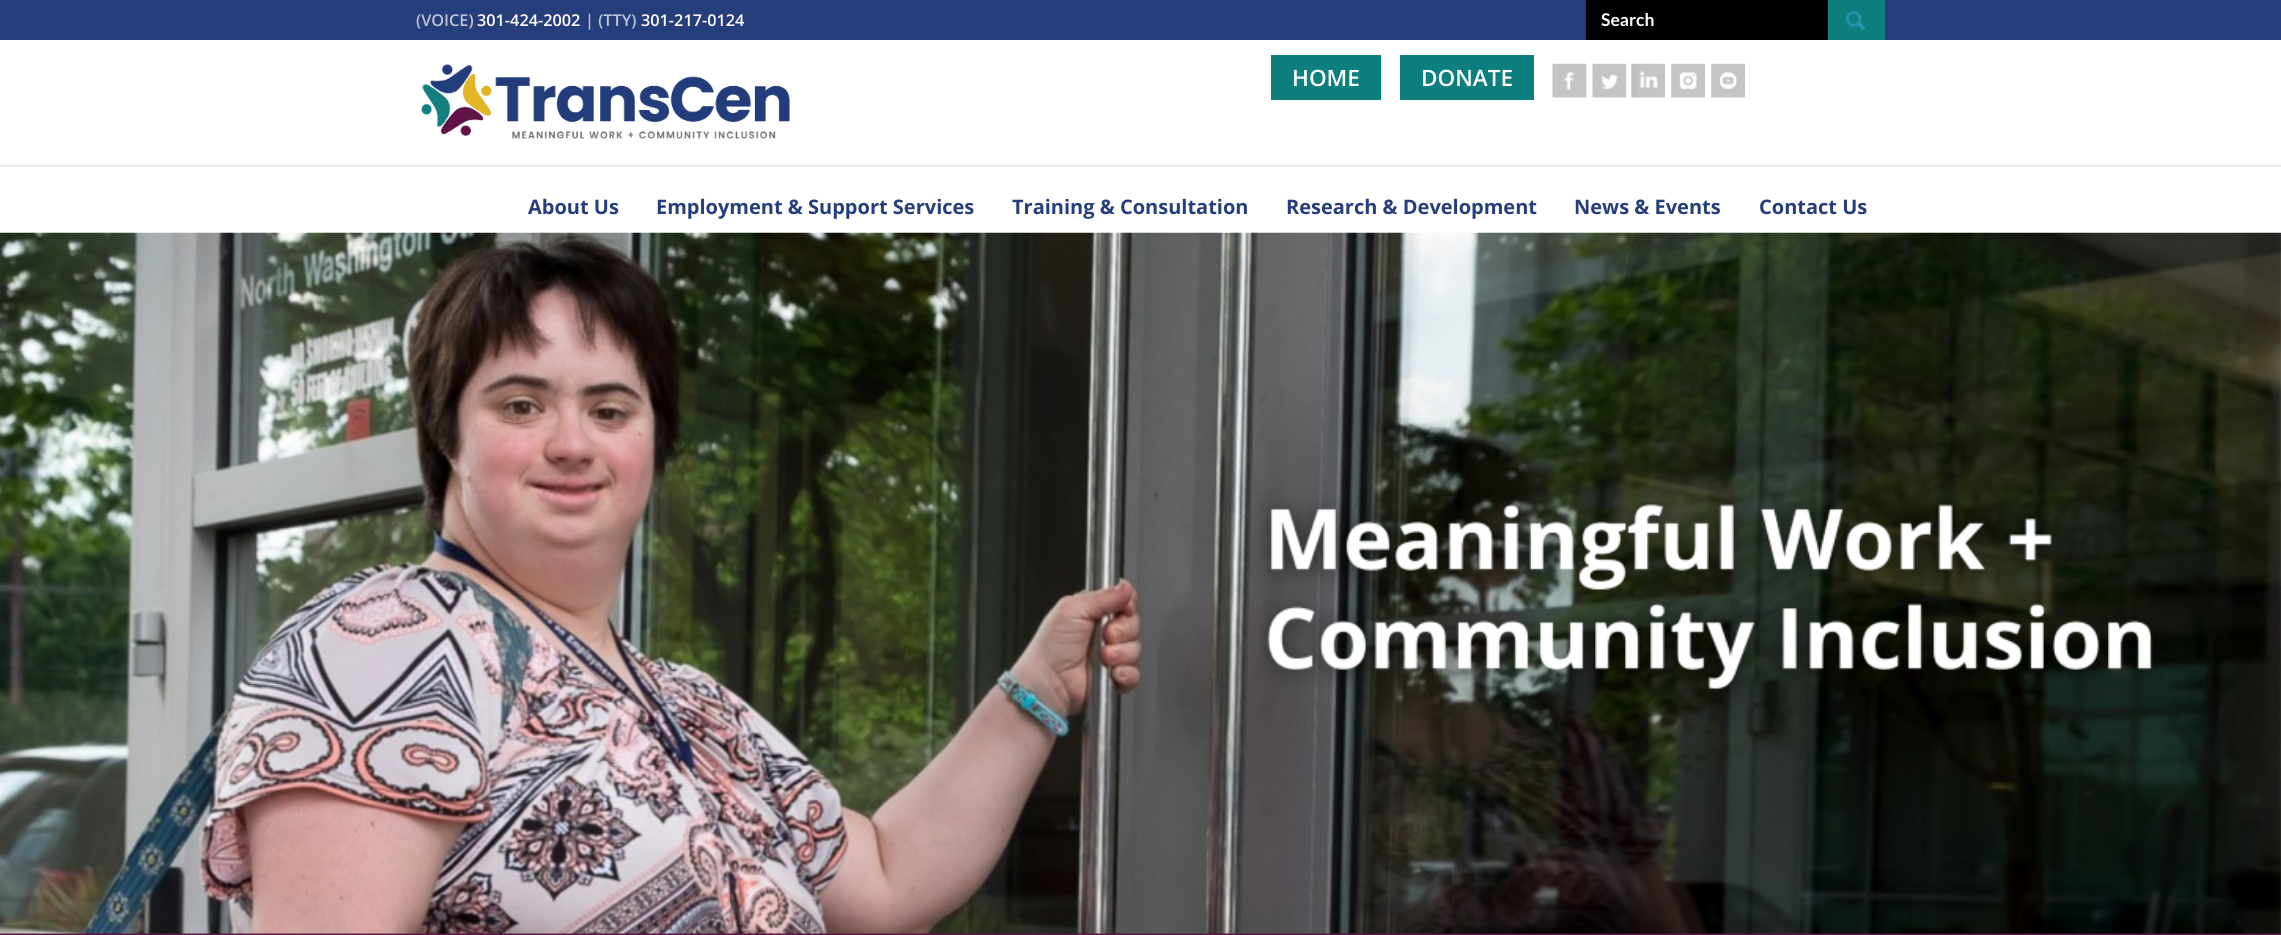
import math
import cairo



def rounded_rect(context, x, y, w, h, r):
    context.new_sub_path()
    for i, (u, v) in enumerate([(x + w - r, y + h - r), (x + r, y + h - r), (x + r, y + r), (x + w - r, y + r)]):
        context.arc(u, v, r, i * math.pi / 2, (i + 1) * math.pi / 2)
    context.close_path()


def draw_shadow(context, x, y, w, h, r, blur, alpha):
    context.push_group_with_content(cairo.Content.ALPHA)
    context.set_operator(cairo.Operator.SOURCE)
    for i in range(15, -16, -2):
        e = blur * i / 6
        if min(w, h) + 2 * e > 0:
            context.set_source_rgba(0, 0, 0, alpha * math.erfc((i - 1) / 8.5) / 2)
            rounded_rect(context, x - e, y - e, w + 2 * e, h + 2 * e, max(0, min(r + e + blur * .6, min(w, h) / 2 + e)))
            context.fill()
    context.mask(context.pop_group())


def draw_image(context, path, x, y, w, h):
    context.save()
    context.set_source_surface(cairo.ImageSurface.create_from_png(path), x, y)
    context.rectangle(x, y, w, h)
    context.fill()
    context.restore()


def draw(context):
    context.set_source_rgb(1, 1, 1)
    context.paint()
    context.save()
    context.rectangle(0, 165, 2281, 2)
    context.clip()
    context.set_source_rgb(0, 0, 0)
    draw_shadow(context, -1, 39, 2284, 127, 0, 1, 0.16)
    context.restore()
    context.set_source_rgb(38 / 255, 62 / 255, 123 / 255)
    context.rectangle(0, 0, 2281, 40)
    context.fill()
    context.set_source_rgb(0, 0, 0)
    context.rectangle(1586, 0, 242, 40)
    context.fill()
    context.set_source_rgb(12 / 255, 127 / 255, 126 / 255)
    context.rectangle(1828, 0, 57, 40)
    context.fill()
    draw_image(context, "images/1.png", 1846, 11, 19, 19)
    draw_image(context, "images/2.png", 421, 64, 369, 75)
    context.rectangle(1271, 55, 110, 45)
    context.fill()
    context.rectangle(1400, 55, 134, 45)
    context.fill()
    draw_image(context, "images/3.png", 1552, 63, 35, 35)
    draw_image(context, "images/4.png", 1592, 63, 35, 35)
    draw_image(context, "images/5.png", 1631, 63, 34, 35)
    draw_image(context, "images/6.png", 1671, 63, 34, 35)
    draw_image(context, "images/7.png", 1711, 63, 34, 35)
    context.set_source_rgb(96 / 255, 19 / 255, 70 / 255)
    context.rectangle(0, 933, 2281, 2)
    context.fill()
    draw_image(context, "images/8.png", 0, 232, 2281, 702)
    context.select_font_face("Open Sans SemiBold")
    context.set_font_size(16.25)
    context.set_source_rgb(190 / 255, 197 / 255, 215 / 255)
    context.move_to(416, 26)
    context.show_text("(VOICE)")
    context.set_source_rgb(1, 1, 1)
    context.move_to(477, 26)
    context.show_text("301-424-2002")
    context.set_source_rgb(190 / 255, 197 / 255, 215 / 255)
    context.move_to(585, 26)
    context.show_text("| (TTY)")
    context.set_source_rgb(1, 1, 1)
    context.move_to(641, 26)
    context.show_text("301-217-0124")
    context.select_font_face("Lato", cairo.FontSlant.NORMAL, cairo.FontWeight.BOLD)
    context.set_font_size(17.5)
    context.move_to(1601, 26)
    context.show_text("Search")
    context.select_font_face("Open Sans SemiBold")
    context.set_font_size(22.5)
    context.move_to(1292, 86)
    context.show_text("HOME")
    context.move_to(1421, 86)
    context.show_text("DONATE")
    context.select_font_face("Open Sans", cairo.FontSlant.NORMAL, cairo.FontWeight.BOLD)
    context.set_font_size(20)
    context.set_source_rgb(38 / 255, 62 / 255, 123 / 255)
    context.move_to(528, 214)
    context.show_text("About Us")
    context.move_to(656, 214)
    context.show_text("Employment & Support Services")
    context.move_to(1012, 214)
    context.show_text("Training & Consultation")
    context.move_to(1286, 214)
    context.show_text("Research & Development")
    context.move_to(1574, 214)
    context.show_text("News & Events")
    context.move_to(1759, 214)
    context.show_text("Contact Us")


surface = cairo.ImageSurface(cairo.Format.RGB24, 2281, 935)
context = cairo.Context(surface)
options = cairo.FontOptions()
options.set_hint_metrics(cairo.HintMetrics.OFF)
options.set_hint_style(cairo.HintStyle.NONE)
context.set_font_options(options)
context.set_miter_limit(4)
draw(context)
surface.write_to_png("out.png")
